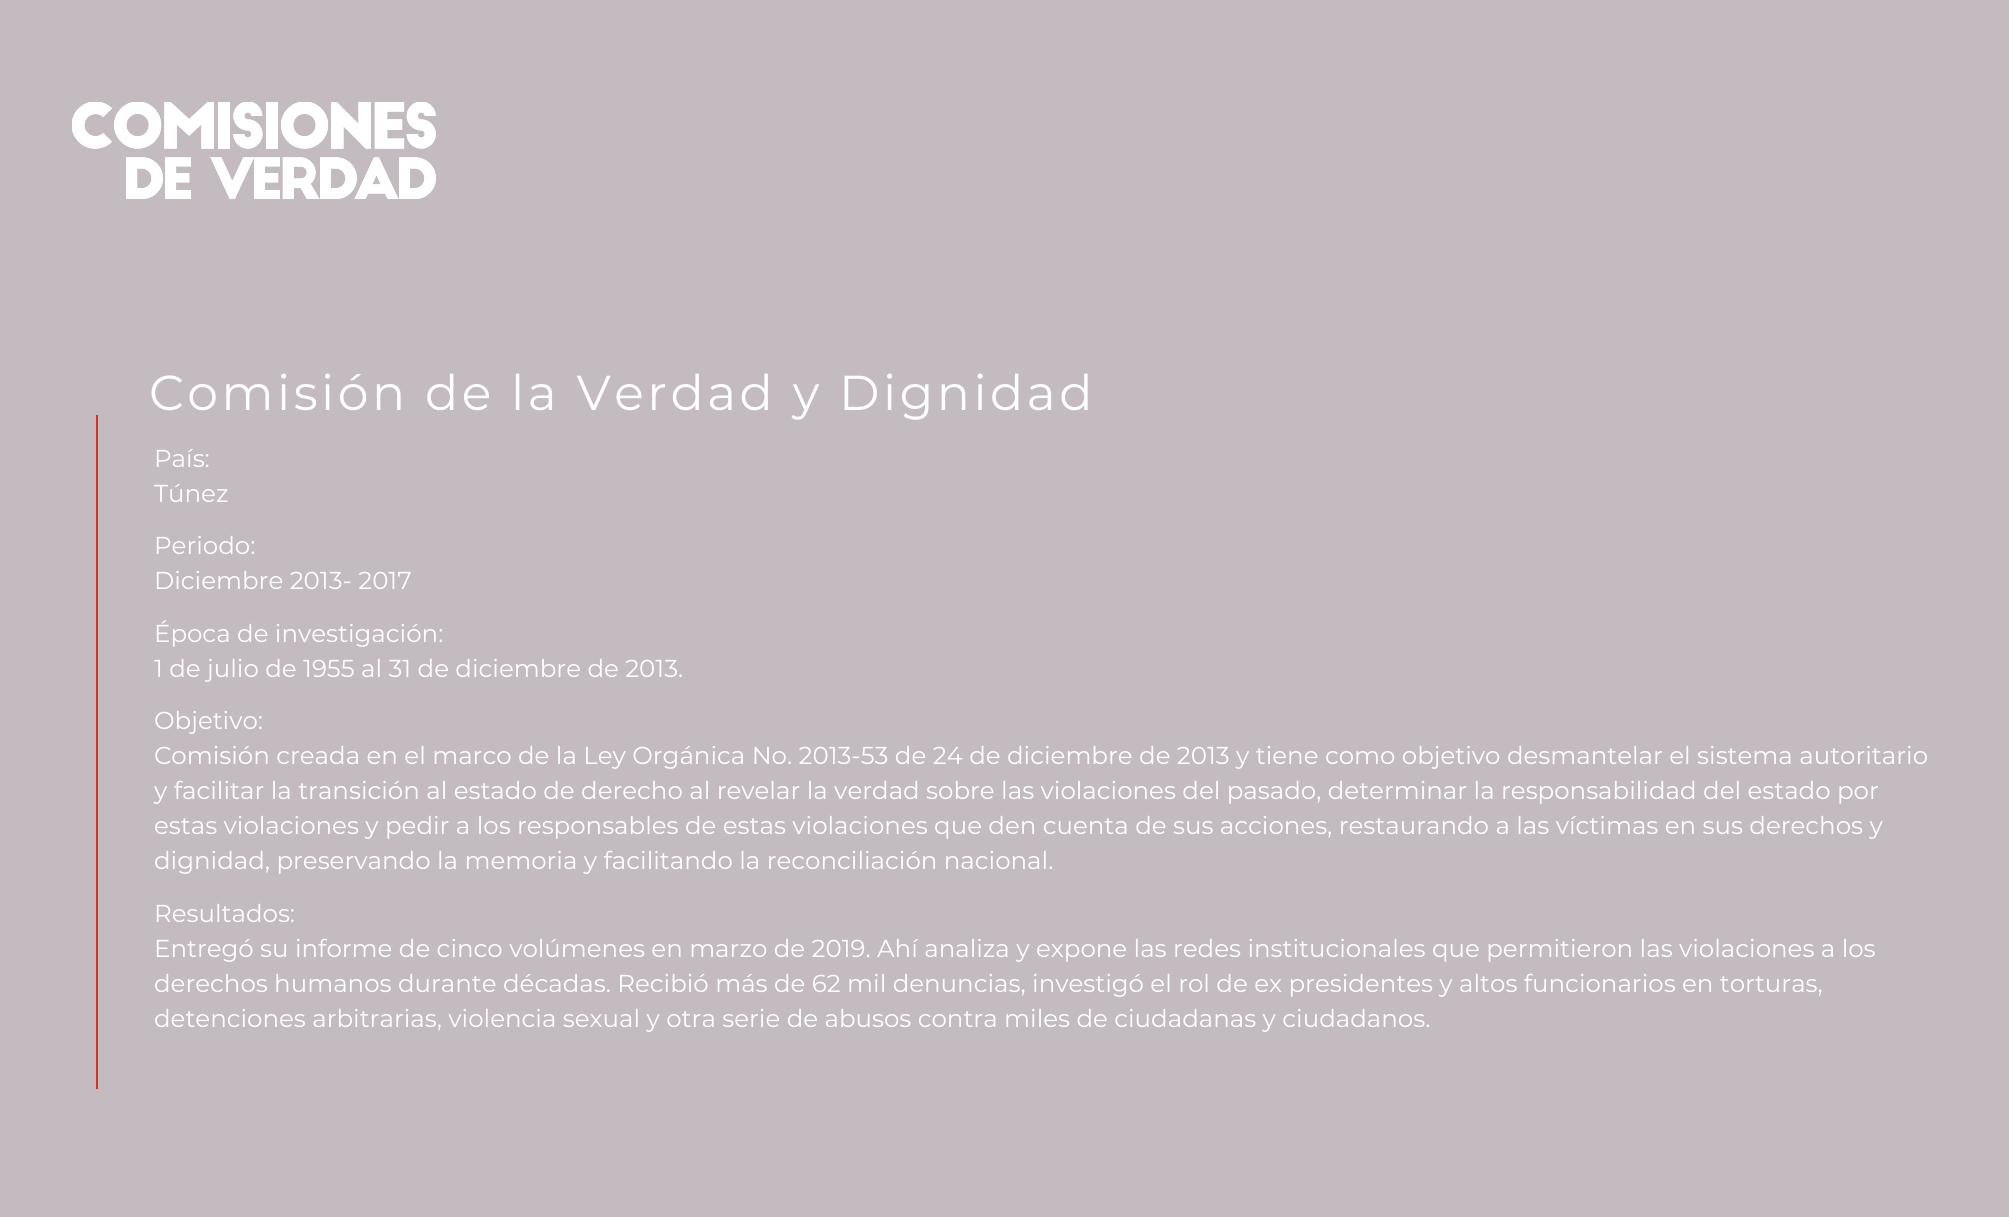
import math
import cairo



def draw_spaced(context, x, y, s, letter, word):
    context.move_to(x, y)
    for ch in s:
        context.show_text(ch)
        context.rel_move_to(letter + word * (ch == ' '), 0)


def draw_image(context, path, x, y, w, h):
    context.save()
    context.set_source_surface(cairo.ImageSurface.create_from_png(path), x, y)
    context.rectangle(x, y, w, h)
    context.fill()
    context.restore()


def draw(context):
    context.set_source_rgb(195 / 255, 187 / 255, 192 / 255)
    context.paint()
    draw_image(context, "images/1.png", 72, 102, 364, 97)
    context.set_source_rgb(214 / 255, 51 / 255, 44 / 255)
    context.rectangle(96, 415, 2, 674)
    context.fill()
    context.select_font_face("Montserrat")
    context.set_font_size(49)
    context.set_source_rgb(1, 1, 1)
    draw_spaced(context, 149, 410, "Comisión de la Verdad y Dignidad", 3.5, 0)
    context.set_font_size(24.5)
    context.move_to(154, 467)
    context.show_text("País:")
    context.move_to(154, 502)
    context.show_text("Túnez")
    context.move_to(154, 554)
    context.show_text("Periodo:")
    context.move_to(154, 589)
    context.show_text("Diciembre 2013- 2017")
    context.move_to(154, 642)
    context.show_text("Época de investigación:")
    context.move_to(154, 677)
    context.show_text("1 de julio de 1955 al 31 de diciembre de 2013.")
    context.move_to(154, 729)
    context.show_text("Objetivo:")
    context.move_to(154, 764)
    context.show_text("Comisión creada en el marco de la Ley Orgánica No. 2013-53 de 24 de diciembre de 2013 y tiene como objetivo desmantelar el sistema autoritario")
    context.move_to(154, 799)
    context.show_text("y facilitar la transición al estado de derecho al revelar la verdad sobre las violaciones del pasado, determinar la responsabilidad del estado por")
    context.move_to(154, 834)
    context.show_text("estas violaciones y pedir a los responsables de estas violaciones que den cuenta de sus acciones, restaurando a las víctimas en sus derechos y")
    context.move_to(154, 869)
    context.show_text("dignidad, preservando la memoria y facilitando la reconciliación nacional.")
    context.move_to(154, 922)
    context.show_text("Resultados:")
    context.move_to(154, 957)
    context.show_text("Entregó su informe de cinco volúmenes en marzo de 2019. Ahí analiza y expone las redes institucionales que permitieron las violaciones a los")
    context.move_to(154, 992)
    context.show_text("derechos humanos durante décadas. Recibió más de 62 mil denuncias, investigó el rol de ex presidentes y altos funcionarios en torturas,")
    context.move_to(154, 1027)
    context.show_text("detenciones arbitrarias, violencia sexual y otra serie de abusos contra miles de ciudadanas y ciudadanos.")


surface = cairo.ImageSurface(cairo.Format.RGB24, 2009, 1217)
context = cairo.Context(surface)
options = cairo.FontOptions()
options.set_hint_metrics(cairo.HintMetrics.OFF)
options.set_hint_style(cairo.HintStyle.NONE)
context.set_font_options(options)
context.set_miter_limit(4)
draw(context)
surface.write_to_png("out.png")
